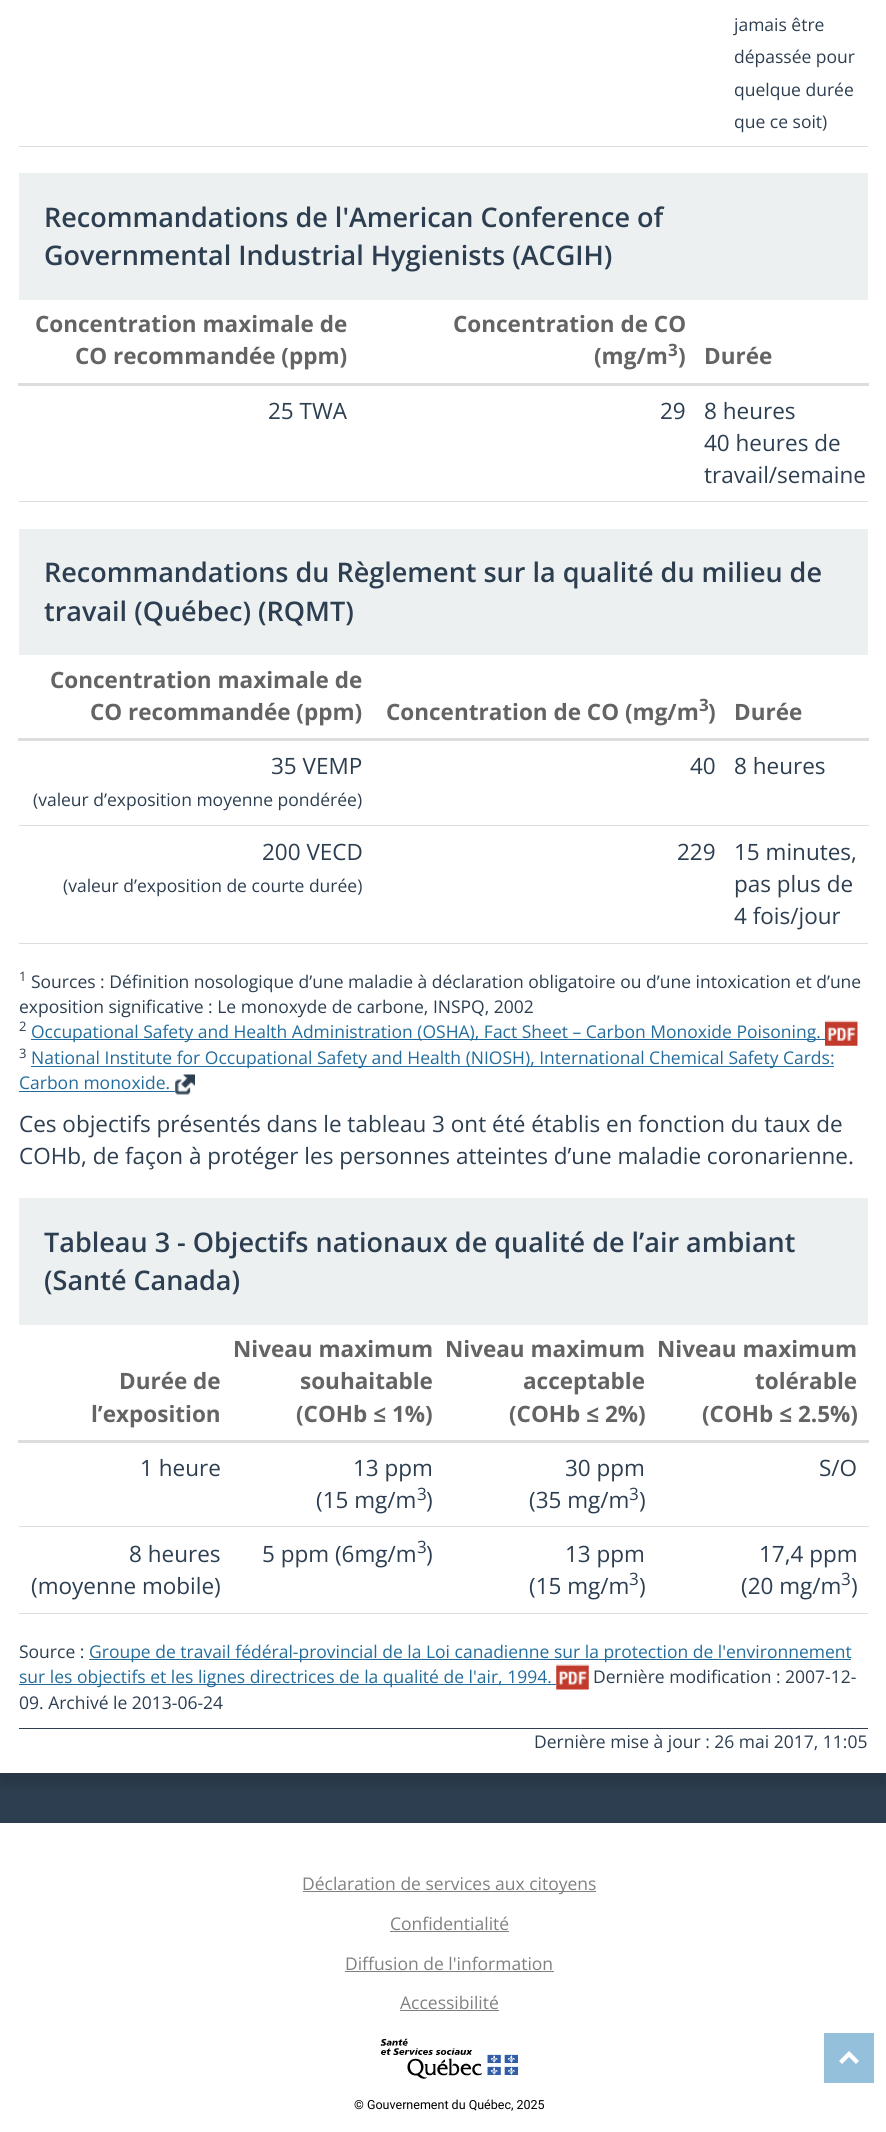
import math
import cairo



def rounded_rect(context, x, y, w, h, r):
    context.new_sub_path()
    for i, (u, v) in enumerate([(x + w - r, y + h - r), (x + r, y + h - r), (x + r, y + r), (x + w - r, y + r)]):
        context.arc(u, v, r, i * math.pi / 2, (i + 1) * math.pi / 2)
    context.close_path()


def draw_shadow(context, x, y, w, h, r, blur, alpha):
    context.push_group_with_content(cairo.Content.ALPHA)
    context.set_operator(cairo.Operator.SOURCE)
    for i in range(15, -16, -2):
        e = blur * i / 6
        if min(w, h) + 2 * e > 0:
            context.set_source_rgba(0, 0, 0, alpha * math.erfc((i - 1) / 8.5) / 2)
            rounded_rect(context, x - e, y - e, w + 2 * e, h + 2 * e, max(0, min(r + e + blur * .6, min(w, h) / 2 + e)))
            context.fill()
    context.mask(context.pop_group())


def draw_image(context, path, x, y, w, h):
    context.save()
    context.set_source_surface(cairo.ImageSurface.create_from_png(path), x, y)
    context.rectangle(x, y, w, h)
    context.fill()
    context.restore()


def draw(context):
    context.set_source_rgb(1, 1, 1)
    context.paint()
    context.set_source_rgb(44 / 255, 62 / 255, 80 / 255)
    context.rectangle(0, 1773, 886, 50)
    context.fill()
    context.set_source_rgb(0, 0, 0)
    draw_shadow(context, -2, -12, 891, 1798, 0, 4, 0.11)
    context.set_source_rgb(1, 1, 1)
    context.rectangle(0, 0, 886, 1773)
    context.fill()
    context.set_source_rgb(221 / 255, 221 / 255, 221 / 255)
    context.rectangle(19, 146, 849, 1)
    context.fill()
    context.rectangle(19, 501, 849, 1)
    context.fill()
    context.set_source_rgb(236 / 255, 240 / 255, 241 / 255)
    context.rectangle(19, 173, 849, 127)
    context.fill()
    context.set_source_rgb(221 / 255, 221 / 255, 221 / 255)
    context.rectangle(18, 383, 851, 3)
    context.fill()
    context.rectangle(19, 943, 849, 1)
    context.fill()
    context.set_source_rgb(236 / 255, 240 / 255, 241 / 255)
    context.rectangle(19, 529, 849, 126)
    context.fill()
    context.set_source_rgb(221 / 255, 221 / 255, 221 / 255)
    context.rectangle(18, 738, 851, 3)
    context.fill()
    context.rectangle(19, 825, 850, 1)
    context.fill()
    context.set_source_rgb(35 / 255, 109 / 255, 157 / 255)
    context.rectangle(31, 1039, 794, 1)
    context.fill()
    draw_image(context, "images/1.png", 825, 1020, 33, 26)
    context.rectangle(31, 1066, 803, 1)
    context.fill()
    context.rectangle(19, 1091, 156, 1)
    context.fill()
    draw_image(context, "images/2.png", 175, 1074, 20, 21)
    context.set_source_rgb(221 / 255, 221 / 255, 221 / 255)
    context.rectangle(19, 1613, 849, 1)
    context.fill()
    context.set_source_rgb(236 / 255, 240 / 255, 241 / 255)
    context.rectangle(19, 1198, 849, 127)
    context.fill()
    context.set_source_rgb(221 / 255, 221 / 255, 221 / 255)
    context.rectangle(18, 1440, 851, 3)
    context.fill()
    context.rectangle(19, 1526, 850, 1)
    context.fill()
    context.set_source_rgb(35 / 255, 109 / 255, 157 / 255)
    context.rectangle(89, 1659, 762, 1)
    context.fill()
    context.rectangle(19, 1684, 537, 1)
    context.fill()
    draw_image(context, "images/3.png", 556, 1664, 33, 26)
    context.set_source_rgb(44 / 255, 62 / 255, 80 / 255)
    context.rectangle(19, 1728, 849, 1)
    context.fill()
    context.set_source_rgb(128 / 255, 128 / 255, 128 / 255)
    context.rectangle(303, 1891, 293, 1)
    context.fill()
    context.rectangle(390, 1931, 119, 1)
    context.fill()
    context.rectangle(345, 1971, 209, 1)
    context.fill()
    context.rectangle(400, 2010, 99, 1)
    context.fill()
    draw_image(context, "images/4.png", 380, 2038, 138, 41)
    context.set_source_rgb(149 / 255, 192 / 255, 220 / 255)
    context.rectangle(824, 2033, 50, 50)
    context.fill()
    context.set_source_rgb(1, 1, 1)
    context.new_path()
    context.move_to(849, 2051)
    context.line_to(859, 2061)
    context.line_to(856, 2064)
    context.line_to(849, 2057)
    context.line_to(842, 2064)
    context.line_to(839, 2061)
    context.close_path()
    context.fill()
    context.select_font_face("Open Sans")
    context.set_font_size(17.5)
    context.set_source_rgb(44 / 255, 62 / 255, 80 / 255)
    context.move_to(734, 31)
    context.show_text("jamais être")
    context.move_to(734, 63)
    context.show_text("dépassée pour")
    context.move_to(734, 96)
    context.show_text("quelque durée")
    context.move_to(734, 128)
    context.show_text("que ce soit)")
    context.select_font_face("Open Sans SemiBold")
    context.set_font_size(27)
    context.move_to(44, 227)
    context.show_text("Recommandations de l'American Conference of")
    context.move_to(44, 265)
    context.show_text("Governmental Industrial Hygienists (ACGIH)")
    context.select_font_face("Open Sans", cairo.FontSlant.NORMAL, cairo.FontWeight.BOLD)
    context.set_font_size(22.5)
    context.set_source_rgb(100 / 255, 100 / 255, 100 / 255)
    context.move_to(35, 332)
    context.show_text("Concentration maximale de")
    context.move_to(75, 364)
    context.show_text("CO recommandée (ppm)")
    context.move_to(453, 332)
    context.show_text("Concentration de CO")
    context.move_to(594, 364)
    context.show_text("(mg/m")
    context.set_font_size(17)
    context.move_to(668, 356)
    context.show_text("3")
    context.set_font_size(22.5)
    context.move_to(678, 364)
    context.show_text(")")
    context.move_to(704, 364)
    context.show_text("Durée")
    context.select_font_face("Open Sans")
    context.set_source_rgb(44 / 255, 62 / 255, 80 / 255)
    context.move_to(268, 419)
    context.show_text("25 TWA")
    context.move_to(660, 419)
    context.show_text("29")
    context.move_to(704, 419)
    context.show_text("8 heures")
    context.move_to(704, 451)
    context.show_text("40 heures de")
    context.move_to(704, 483)
    context.show_text("travail/semaine")
    context.select_font_face("Open Sans SemiBold")
    context.set_font_size(27)
    context.move_to(44, 582)
    context.show_text("Recommandations du Règlement sur la qualité du milieu de")
    context.move_to(44, 621)
    context.show_text("travail (Québec) (RQMT)")
    context.select_font_face("Open Sans", cairo.FontSlant.NORMAL, cairo.FontWeight.BOLD)
    context.set_font_size(22.5)
    context.set_source_rgb(100 / 255, 100 / 255, 100 / 255)
    context.move_to(50, 688)
    context.show_text("Concentration maximale de")
    context.move_to(90, 720)
    context.show_text("CO recommandée (ppm)")
    context.move_to(386, 720)
    context.show_text("Concentration de CO (mg/m")
    context.set_font_size(17)
    context.move_to(699, 711)
    context.show_text("3")
    context.set_font_size(22.5)
    context.move_to(708, 720)
    context.show_text(")")
    context.move_to(734, 720)
    context.show_text("Durée")
    context.select_font_face("Open Sans")
    context.set_source_rgb(44 / 255, 62 / 255, 80 / 255)
    context.move_to(271, 774)
    context.show_text("35 VEMP")
    context.set_font_size(17.5)
    context.move_to(33, 806)
    context.show_text("(valeur d’exposition moyenne pondérée)")
    context.set_font_size(22.5)
    context.move_to(690, 774)
    context.show_text("40")
    context.move_to(734, 774)
    context.show_text("8 heures")
    context.move_to(262, 860)
    context.show_text("200 VECD")
    context.set_font_size(17.5)
    context.move_to(63, 892)
    context.show_text("(valeur d’exposition de courte durée)")
    context.set_font_size(22.5)
    context.move_to(677, 860)
    context.show_text("229")
    context.move_to(734, 860)
    context.show_text("15 minutes,")
    context.move_to(734, 892)
    context.show_text("pas plus de")
    context.move_to(734, 924)
    context.show_text("4 fois/jour")
    context.set_font_size(13)
    context.move_to(19, 981)
    context.show_text("1")
    context.set_font_size(17.5)
    context.move_to(31, 988)
    context.show_text("Sources : Définition nosologique d’une maladie à déclaration obligatoire ou d’une intoxication et d’une")
    context.move_to(19, 1013)
    context.show_text("exposition significative : Le monoxyde de carbone, INSPQ, 2002")
    context.set_font_size(13)
    context.move_to(19, 1031)
    context.show_text("2")
    context.set_font_size(17.5)
    context.set_source_rgb(35 / 255, 109 / 255, 157 / 255)
    context.move_to(31, 1038)
    context.show_text("Occupational Safety and Health Administration (OSHA), Fact Sheet – Carbon Monoxide Poisoning.")
    context.set_font_size(13)
    context.set_source_rgb(44 / 255, 62 / 255, 80 / 255)
    context.move_to(19, 1058)
    context.show_text("3")
    context.set_font_size(17.5)
    context.set_source_rgb(35 / 255, 109 / 255, 157 / 255)
    context.move_to(31, 1064)
    context.show_text("National Institute for Occupational Safety and Health (NIOSH), International Chemical Safety Cards:")
    context.move_to(19, 1089)
    context.show_text("Carbon monoxide.")
    context.set_font_size(22.5)
    context.set_source_rgb(44 / 255, 62 / 255, 80 / 255)
    context.move_to(19, 1132)
    context.show_text("Ces objectifs présentés dans le tableau 3 ont été établis en fonction du taux de")
    context.move_to(19, 1164)
    context.show_text("COHb, de façon à protéger les personnes atteintes d’une maladie coronarienne.")
    context.select_font_face("Open Sans SemiBold")
    context.set_font_size(27)
    context.move_to(44, 1252)
    context.show_text("Tableau 3 - Objectifs nationaux de qualité de l’air ambiant")
    context.move_to(44, 1290)
    context.show_text("(Santé Canada)")
    context.select_font_face("Open Sans", cairo.FontSlant.NORMAL, cairo.FontWeight.BOLD)
    context.set_font_size(22.5)
    context.set_source_rgb(100 / 255, 100 / 255, 100 / 255)
    context.move_to(119, 1389)
    context.show_text("Durée de")
    context.move_to(91, 1422)
    context.show_text("l’exposition")
    context.move_to(233, 1357)
    context.show_text("Niveau maximum")
    context.move_to(300, 1389)
    context.show_text("souhaitable")
    context.move_to(296, 1422)
    context.show_text("(COHb ≤ 1%)")
    context.move_to(445, 1357)
    context.show_text("Niveau maximum")
    context.move_to(523, 1389)
    context.show_text("acceptable")
    context.move_to(509, 1422)
    context.show_text("(COHb ≤ 2%)")
    context.move_to(657, 1357)
    context.show_text("Niveau maximum")
    context.move_to(755, 1389)
    context.show_text("tolérable")
    context.move_to(702, 1422)
    context.show_text("(COHb ≤ 2.5%)")
    context.select_font_face("Open Sans")
    context.set_source_rgb(44 / 255, 62 / 255, 80 / 255)
    context.move_to(140, 1476)
    context.show_text("1 heure")
    context.move_to(353, 1476)
    context.show_text("13 ppm")
    context.move_to(316, 1508)
    context.show_text("(15 mg/m")
    context.set_font_size(17)
    context.move_to(417, 1500)
    context.show_text("3")
    context.set_font_size(22.5)
    context.move_to(426, 1508)
    context.show_text(")")
    context.move_to(565, 1476)
    context.show_text("30 ppm")
    context.move_to(529, 1508)
    context.show_text("(35 mg/m")
    context.set_font_size(17)
    context.move_to(629, 1500)
    context.show_text("3")
    context.set_font_size(22.5)
    context.move_to(639, 1508)
    context.show_text(")")
    context.move_to(819, 1476)
    context.show_text("S/O")
    context.move_to(129, 1562)
    context.show_text("8 heures")
    context.move_to(31, 1594)
    context.show_text("(moyenne mobile)")
    context.move_to(262, 1562)
    context.show_text("5 ppm (6mg/m")
    context.set_font_size(17)
    context.move_to(417, 1553)
    context.show_text("3")
    context.set_font_size(22.5)
    context.move_to(426, 1562)
    context.show_text(")")
    context.move_to(565, 1562)
    context.show_text("13 ppm")
    context.move_to(529, 1594)
    context.show_text("(15 mg/m")
    context.set_font_size(17)
    context.move_to(629, 1585)
    context.show_text("3")
    context.set_font_size(22.5)
    context.move_to(639, 1594)
    context.show_text(")")
    context.move_to(759, 1562)
    context.show_text("17,4 ppm")
    context.move_to(741, 1594)
    context.show_text("(20 mg/m")
    context.set_font_size(17)
    context.move_to(841, 1585)
    context.show_text("3")
    context.set_font_size(22.5)
    context.move_to(851, 1594)
    context.show_text(")")
    context.set_font_size(17.5)
    context.move_to(19, 1658)
    context.show_text("Source :")
    context.set_source_rgb(35 / 255, 109 / 255, 157 / 255)
    context.move_to(89, 1658)
    context.show_text("Groupe de travail fédéral-provincial de la Loi canadienne sur la protection de l'environnement")
    context.move_to(19, 1683)
    context.show_text("sur les objectifs et les lignes directrices de la qualité de l'air, 1994.")
    context.set_source_rgb(44 / 255, 62 / 255, 80 / 255)
    context.move_to(593, 1683)
    context.show_text("Dernière modification : 2007-12-")
    context.move_to(19, 1709)
    context.show_text("09. Archivé le 2013-06-24")
    context.move_to(534, 1748)
    context.show_text("Dernière mise à jour : 26 mai 2017, 11:05")
    context.set_source_rgb(128 / 255, 128 / 255, 128 / 255)
    context.move_to(302, 1890)
    context.show_text("Déclaration de services aux citoyens")
    context.move_to(390, 1930)
    context.show_text("Confidentialité")
    context.move_to(345, 1970)
    context.show_text("Diffusion de l'information")
    context.move_to(400, 2009)
    context.show_text("Accessibilité")
    context.select_font_face("Roboto")
    context.set_font_size(12.5)
    context.set_source_rgb(0, 0, 0)
    context.move_to(354, 2109)
    context.show_text("© Gouvernement du Québec, 2025")


surface = cairo.ImageSurface(cairo.Format.RGB24, 886, 2132)
context = cairo.Context(surface)
options = cairo.FontOptions()
options.set_hint_metrics(cairo.HintMetrics.OFF)
options.set_hint_style(cairo.HintStyle.NONE)
context.set_font_options(options)
context.set_miter_limit(4)
draw(context)
surface.write_to_png("out.png")
